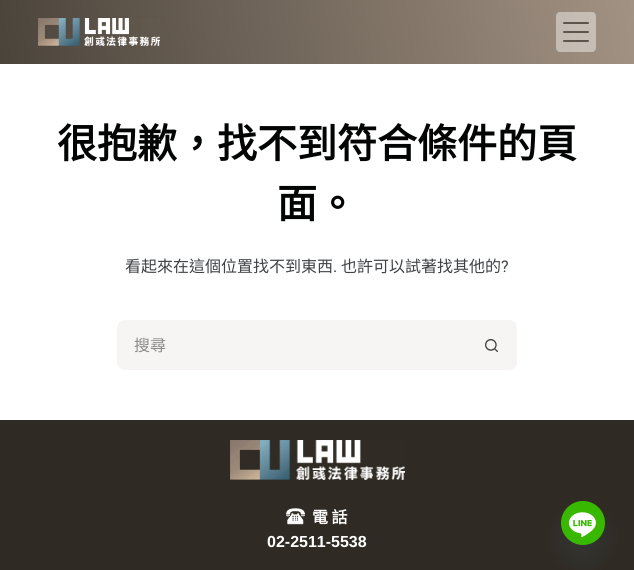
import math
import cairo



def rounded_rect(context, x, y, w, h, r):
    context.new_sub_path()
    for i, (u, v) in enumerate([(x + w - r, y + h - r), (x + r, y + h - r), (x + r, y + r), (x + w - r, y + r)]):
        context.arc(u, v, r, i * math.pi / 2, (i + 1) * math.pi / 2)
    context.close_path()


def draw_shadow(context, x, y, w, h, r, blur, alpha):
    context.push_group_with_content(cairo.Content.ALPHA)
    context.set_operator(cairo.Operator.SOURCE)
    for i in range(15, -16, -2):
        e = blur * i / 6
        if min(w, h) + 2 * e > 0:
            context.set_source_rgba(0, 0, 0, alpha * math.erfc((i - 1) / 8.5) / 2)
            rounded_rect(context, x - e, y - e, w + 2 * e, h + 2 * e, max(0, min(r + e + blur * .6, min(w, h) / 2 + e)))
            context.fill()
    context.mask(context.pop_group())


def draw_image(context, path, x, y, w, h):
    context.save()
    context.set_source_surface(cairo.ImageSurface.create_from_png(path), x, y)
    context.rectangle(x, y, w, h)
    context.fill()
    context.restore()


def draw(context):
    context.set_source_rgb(1, 1, 1)
    context.paint()
    gradient = cairo.LinearGradient(4.1, 87, 630, -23)
    gradient.add_color_stop_rgba(0, 75 / 255, 68 / 255, 59 / 255, 1)
    gradient.add_color_stop_rgba(1, 162 / 255, 146 / 255, 131 / 255, 1)
    context.set_source(gradient)
    context.rectangle(0, 0, 634, 64)
    context.fill()
    draw_image(context, "images/1.png", 38, 18, 122, 28)
    context.set_source_rgba(1, 1, 1, 0.43)
    rounded_rect(context, 556, 12, 40, 40, 4)
    context.fill()
    context.set_source_rgb(92 / 255, 84 / 255, 77 / 255)
    rounded_rect(context, 563, 22, 26, 2, 1)
    context.fill()
    rounded_rect(context, 563, 31, 26, 2, 1)
    context.fill()
    rounded_rect(context, 563, 40, 26, 2, 1)
    context.fill()
    context.set_source_rgb(247 / 255, 245 / 255, 244 / 255)
    context.new_path()
    context.move_to(125, 320)
    context.line_to(467, 320)
    context.line_to(467, 370)
    context.line_to(125, 370)
    context.curve_to(120.5, 370, 117, 366.5, 117, 362)
    context.line_to(117, 328)
    context.curve_to(117, 323.5, 120.5, 320, 125, 320)
    context.close_path()
    context.fill()
    context.new_path()
    context.move_to(467, 320)
    context.line_to(509, 320)
    context.curve_to(513.5, 320, 517, 323.5, 517, 328)
    context.line_to(517, 362)
    context.curve_to(517, 366.5, 513.5, 370, 509, 370)
    context.line_to(467, 370)
    context.close_path()
    context.fill()
    draw_image(context, "images/2.png", 485, 339, 13, 13)
    context.set_source_rgb(47 / 255, 42 / 255, 35 / 255)
    context.rectangle(0, 420, 634, 150)
    context.fill()
    draw_image(context, "images/3.png", 230, 440, 175, 40)
    draw_image(context, "images/4.png", 286, 508, 19, 17)
    context.set_source_rgb(73 / 255, 104 / 255, 126 / 255)
    draw_shadow(context, 561, 517, 44, 44, 22, 12, 0.16)
    draw_image(context, "images/5.png", 561, 501, 44, 44)
    context.select_font_face("Noto Sans CJK TC", cairo.FontSlant.NORMAL, cairo.FontWeight.BOLD)
    context.set_font_size(40)
    context.set_source_rgb(2 / 255, 4 / 255, 4 / 255)
    context.move_to(57, 158)
    context.show_text("很抱歉，找不到符合條件的頁")
    context.move_to(277, 218)
    context.show_text("面。")
    context.select_font_face("Noto Sans CJK TC")
    context.set_font_size(16)
    context.set_source_rgb(63 / 255, 66 / 255, 69 / 255)
    context.move_to(125, 272)
    context.show_text("看起來在這個位置找不到東西")
    context.select_font_face("Roboto")
    context.move_to(333, 272)
    context.show_text(".")
    context.select_font_face("Noto Sans CJK TC")
    context.move_to(341, 272)
    context.show_text("也許可以試著找其他的")
    context.select_font_face("Roboto")
    context.move_to(501, 272)
    context.show_text("?")
    context.select_font_face("Noto Sans CJK TC")
    context.set_source_rgb(137 / 255, 138 / 255, 139 / 255)
    context.move_to(134, 351)
    context.show_text("搜尋")
    context.select_font_face("Noto Sans CJK TC", cairo.FontSlant.NORMAL, cairo.FontWeight.BOLD)
    context.set_source_rgb(1, 1, 1)
    context.move_to(312, 523)
    context.show_text("電 話")
    context.select_font_face("Liberation Sans", cairo.FontSlant.NORMAL, cairo.FontWeight.BOLD)
    context.move_to(267, 547)
    context.show_text("02-2511-5538")


surface = cairo.ImageSurface(cairo.Format.RGB24, 634, 570)
context = cairo.Context(surface)
options = cairo.FontOptions()
options.set_hint_metrics(cairo.HintMetrics.OFF)
options.set_hint_style(cairo.HintStyle.NONE)
context.set_font_options(options)
context.set_miter_limit(4)
draw(context)
surface.write_to_png("out.png")
